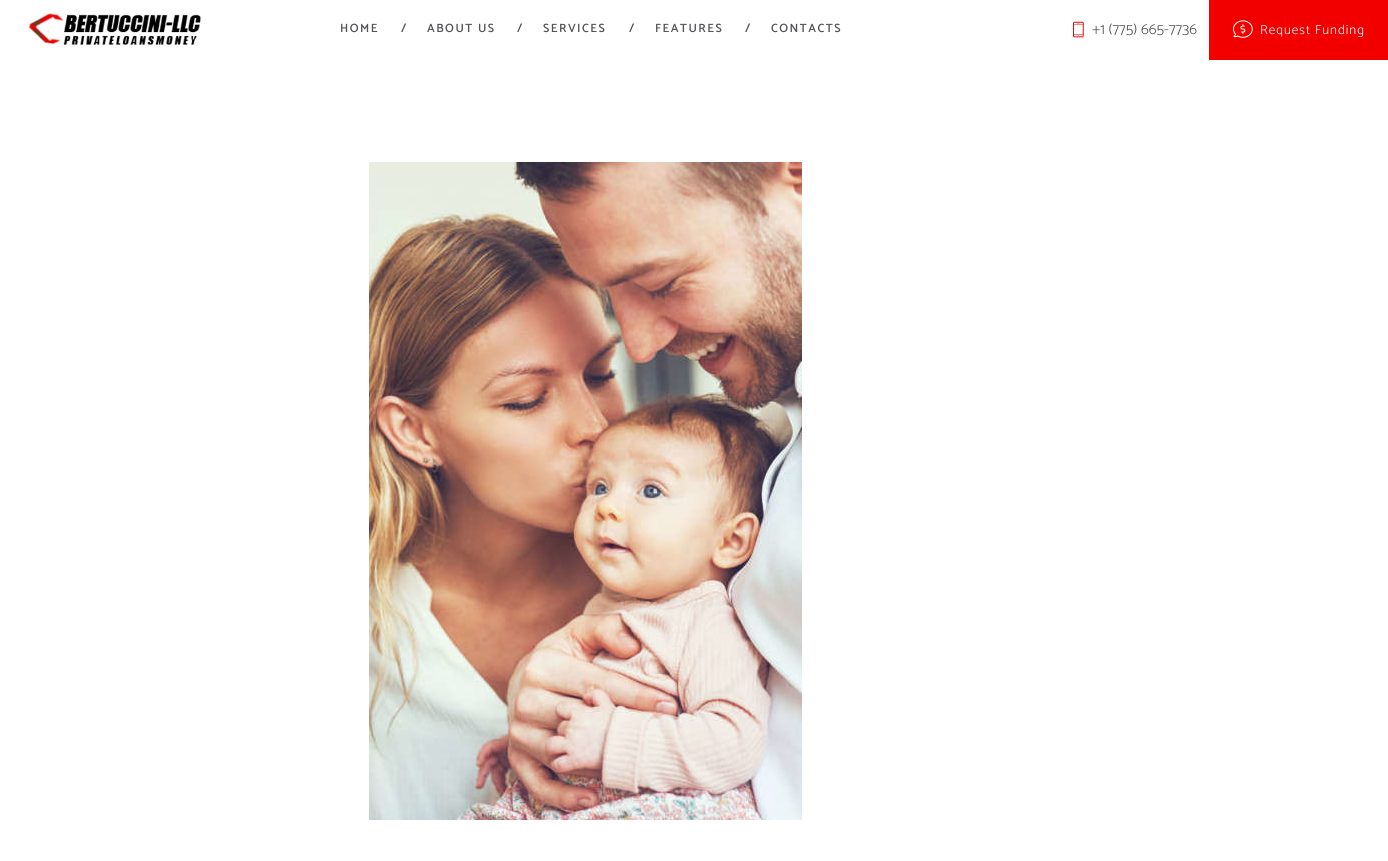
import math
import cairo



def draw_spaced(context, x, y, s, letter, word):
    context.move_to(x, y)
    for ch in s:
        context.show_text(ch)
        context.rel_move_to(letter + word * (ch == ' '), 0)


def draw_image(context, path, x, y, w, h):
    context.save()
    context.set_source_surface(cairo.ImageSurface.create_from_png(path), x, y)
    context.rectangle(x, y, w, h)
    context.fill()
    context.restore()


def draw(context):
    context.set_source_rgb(1, 1, 1)
    context.paint()
    draw_image(context, "images/1.png", 28, 13, 173, 32)
    draw_image(context, "images/2.png", 1073, 21, 11, 17)
    context.set_source_rgb(242 / 255, 0, 0)
    context.rectangle(1209, 0, 179, 60)
    context.fill()
    draw_image(context, "images/3.png", 1233, 20, 20, 18)
    draw_image(context, "images/4.png", 369, 162, 433, 658)
    context.select_font_face("Catamaran SemiBold")
    context.set_font_size(12)
    context.set_source_rgb(83 / 255, 84 / 255, 88 / 255)
    draw_spaced(context, 340, 32, "HOME", 1.5, 0)
    draw_spaced(context, 401, 32, "/", 1.5, 0)
    draw_spaced(context, 427, 32, "ABOUT US", 1.5, 0)
    draw_spaced(context, 517, 32, "/", 1.5, 0)
    draw_spaced(context, 543, 32, "SERVICES", 1.5, 0)
    draw_spaced(context, 629, 32, "/", 1.5, 0)
    draw_spaced(context, 655, 32, "FEATURES", 1.5, 0)
    draw_spaced(context, 745, 32, "/", 1.5, 0)
    draw_spaced(context, 771, 32, "CONTACTS", 1.5, 0)
    context.select_font_face("Catamaran Light")
    context.set_font_size(15.5)
    context.move_to(1092, 34)
    context.show_text("+1 (775) 665-7736")
    context.set_font_size(13.25)
    context.set_source_rgb(1, 1, 1)
    draw_spaced(context, 1260, 34, "Request Funding", 1, 0)


surface = cairo.ImageSurface(cairo.Format.RGB24, 1388, 861)
context = cairo.Context(surface)
options = cairo.FontOptions()
options.set_hint_metrics(cairo.HintMetrics.OFF)
options.set_hint_style(cairo.HintStyle.NONE)
context.set_font_options(options)
context.set_miter_limit(4)
draw(context)
surface.write_to_png("out.png")
